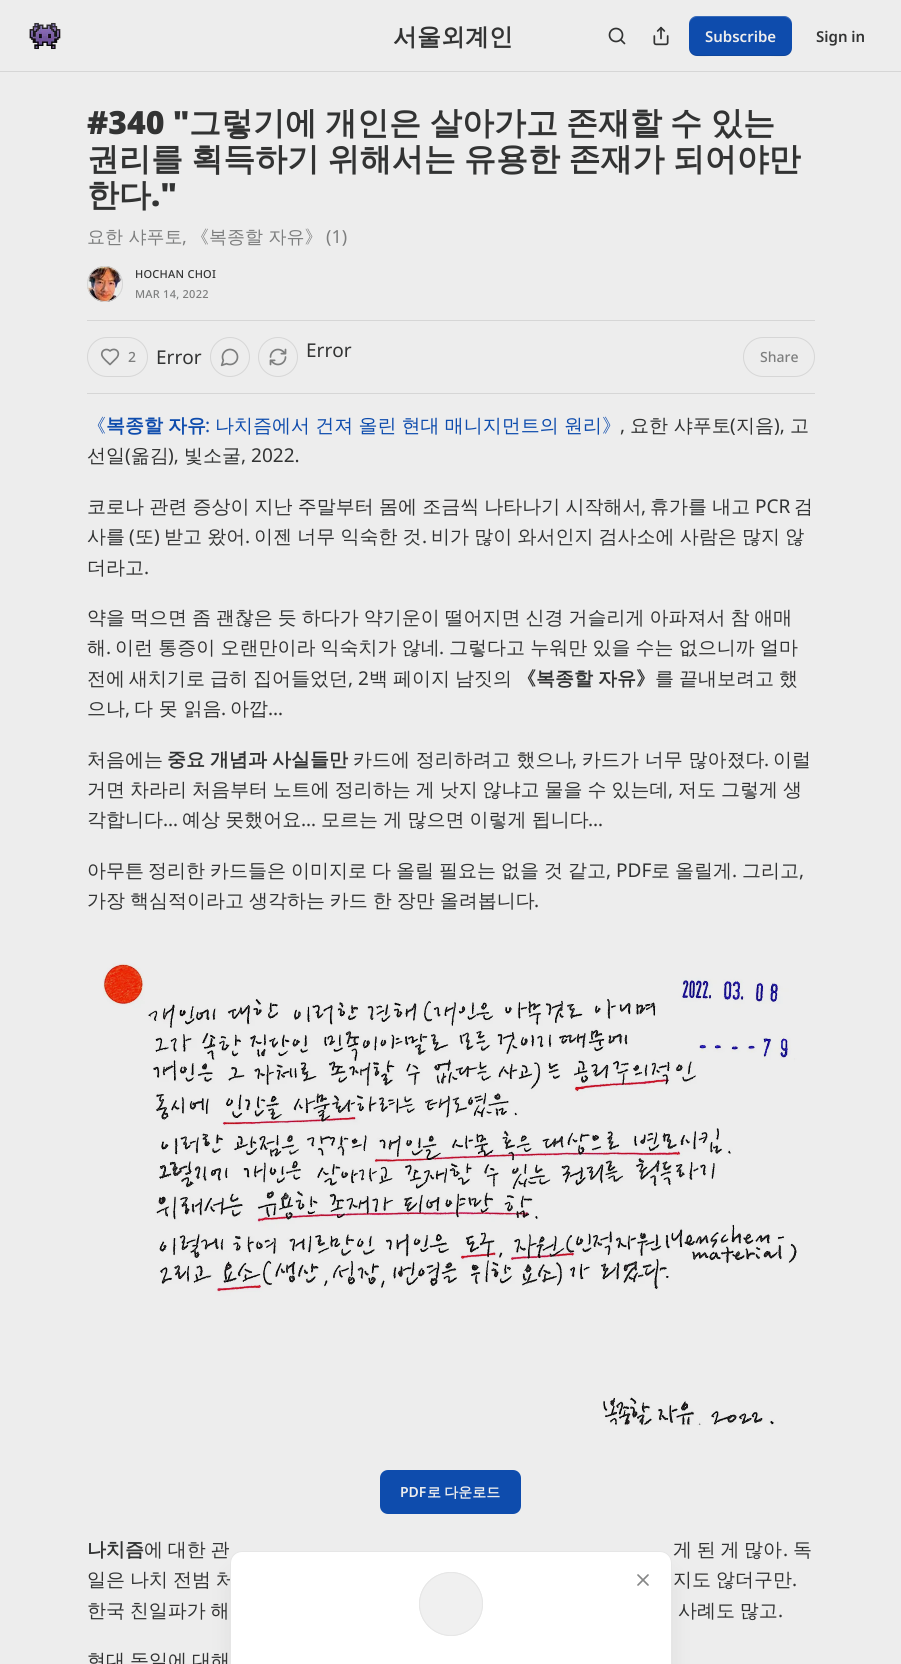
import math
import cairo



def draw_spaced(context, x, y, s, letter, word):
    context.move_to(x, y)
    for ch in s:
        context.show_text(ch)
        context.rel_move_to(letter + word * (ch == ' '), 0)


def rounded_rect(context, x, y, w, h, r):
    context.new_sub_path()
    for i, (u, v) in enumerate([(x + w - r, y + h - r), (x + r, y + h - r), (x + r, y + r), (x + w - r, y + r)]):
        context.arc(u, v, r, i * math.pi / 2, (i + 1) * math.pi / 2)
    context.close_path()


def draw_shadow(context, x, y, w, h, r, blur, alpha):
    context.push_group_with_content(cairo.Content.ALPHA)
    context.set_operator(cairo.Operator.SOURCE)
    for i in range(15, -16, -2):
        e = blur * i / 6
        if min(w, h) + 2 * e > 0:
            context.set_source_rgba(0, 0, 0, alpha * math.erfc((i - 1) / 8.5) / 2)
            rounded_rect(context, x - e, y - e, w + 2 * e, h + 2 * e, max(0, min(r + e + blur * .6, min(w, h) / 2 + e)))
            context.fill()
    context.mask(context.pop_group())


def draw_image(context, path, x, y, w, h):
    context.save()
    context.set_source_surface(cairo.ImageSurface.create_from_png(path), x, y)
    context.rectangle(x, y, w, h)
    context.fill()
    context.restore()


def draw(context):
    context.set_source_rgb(237 / 255, 237 / 255, 237 / 255)
    context.paint()
    context.set_source_rgb(214 / 255, 214 / 255, 214 / 255)
    context.rectangle(0, 71, 901, 1)
    context.fill()
    draw_image(context, "images/1.png", 29, 22, 32, 28)
    context.arc(616, 35, 6.5, 0, 2 * math.pi)
    context.set_source_rgb(50 / 255, 51 / 255, 51 / 255)
    context.set_line_width(1.7)
    context.stroke()
    context.new_path()
    context.move_to(624.5, 43.5)
    context.line_to(621, 40)
    context.set_line_cap(cairo.LineCap.ROUND)
    context.set_line_join(cairo.LineJoin.ROUND)
    context.stroke()
    draw_image(context, "images/2.png", 653, 26, 16, 20)
    context.set_source_rgb(14 / 255, 76 / 255, 173 / 255)
    rounded_rect(context, 689, 16, 103, 40, 8)
    context.fill()
    context.set_source_rgba(0, 0, 0, 0.1)
    context.new_path()
    context.move_to(689, 47)
    context.curve_to(689, 59, 703, 56, 712, 56)
    context.line_to(770, 56)
    context.curve_to(778, 56, 792, 59, 792, 47)
    context.curve_to(792, 51, 788, 55, 784, 55)
    context.line_to(697, 55)
    context.curve_to(693, 55, 689, 51, 689, 47)
    context.close_path()
    context.fill()
    context.set_source_rgba(237 / 255, 237 / 255, 237 / 255, 0.2)
    context.new_path()
    context.move_to(697, 17)
    context.line_to(784, 17)
    context.curve_to(788, 17, 792, 21, 792, 25)
    context.curve_to(792, 13, 778, 16, 770, 16)
    context.line_to(712, 16)
    context.curve_to(703, 16, 689, 13, 689, 25)
    context.curve_to(689, 21, 693, 17, 697, 17)
    context.close_path()
    context.fill()
    context.arc(105, 284, 17.5, 0, 2 * math.pi)
    context.set_source_rgb(214 / 255, 214 / 255, 214 / 255)
    context.set_line_width(1)
    context.set_line_cap(cairo.LineCap.BUTT)
    context.set_line_join(cairo.LineJoin.MITER)
    context.stroke()
    draw_image(context, "images/3.png", 87, 266, 36, 36)
    context.arc(105, 284, 17.5, 0, 2 * math.pi)
    context.stroke()
    context.rectangle(87, 320, 728, 1)
    context.fill()
    context.rectangle(87, 393, 728, 1)
    context.fill()
    rounded_rect(context, 87.5, 337.5, 60, 39, 19.5)
    context.stroke()
    context.new_path()
    context.move_to(116, 358.5)
    context.curve_to(122, 352.5, 115, 346.5, 110, 351)
    context.curve_to(106.5, 347.5, 100.5, 350.5, 102, 355.5)
    context.curve_to(103, 358.5, 108, 362.5, 110, 364.5)
    context.close_path()
    context.set_source_rgb(125 / 255, 126 / 255, 126 / 255)
    context.set_line_width(1.7)
    context.set_line_cap(cairo.LineCap.ROUND)
    context.set_line_join(cairo.LineJoin.ROUND)
    context.stroke()
    context.arc(230, 357, 19.5, 0, 2 * math.pi)
    context.set_source_rgb(214 / 255, 214 / 255, 214 / 255)
    context.set_line_width(1)
    context.set_line_cap(cairo.LineCap.BUTT)
    context.set_line_join(cairo.LineJoin.MITER)
    context.stroke()
    draw_image(context, "images/4.png", 220, 348, 19, 19)
    context.arc(278, 357, 19.5, 0, 2 * math.pi)
    context.stroke()
    draw_image(context, "images/5.png", 269, 348, 18, 18)
    rounded_rect(context, 743.5, 337.5, 71, 39, 19.5)
    context.stroke()
    draw_image(context, "images/6.png", 103, 963, 694, 463)
    context.set_source_rgb(14 / 255, 76 / 255, 173 / 255)
    rounded_rect(context, 380, 1470, 141, 44, 8)
    context.fill()
    context.set_source_rgb(0, 0, 0)
    draw_shadow(context, 235, 1576, 432, 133, 7, 12.5, 0.1)
    context.select_font_face("WenQuanYi Zen Hei", cairo.FontSlant.NORMAL, cairo.FontWeight.BOLD)
    context.set_font_size(24)
    context.set_source_rgb(50 / 255, 51 / 255, 51 / 255)
    context.move_to(393, 45)
    context.show_text("서울외계인")
    context.select_font_face("Noto Sans SemiBold")
    context.set_font_size(15)
    context.set_source_rgb(237 / 255, 237 / 255, 237 / 255)
    context.move_to(705, 42)
    context.show_text("Subscribe")
    context.set_source_rgb(50 / 255, 51 / 255, 51 / 255)
    context.move_to(816, 42)
    context.show_text("Sign in")
    context.select_font_face("Noto Sans Black")
    context.set_font_size(32)
    context.move_to(87, 134)
    context.show_text("#340 \"")
    context.select_font_face("WenQuanYi Zen Hei", cairo.FontSlant.NORMAL, cairo.FontWeight.BOLD)
    context.move_to(189, 134)
    context.show_text("그렇기에")
    context.move_to(325, 134)
    context.show_text("개인은")
    context.move_to(430, 134)
    context.show_text("살아가고")
    context.move_to(566, 134)
    context.show_text("존재할")
    context.move_to(670, 134)
    context.show_text("수")
    context.move_to(711, 134)
    context.show_text("있는")
    draw_spaced(context, 87, 170, "권리를 획득하기 위해서는 유용한 존재가 되어야만", 0, -1.25)
    context.move_to(87, 206)
    context.show_text("한다")
    context.select_font_face("Noto Sans Black")
    context.move_to(151, 206)
    context.show_text(".\"")
    context.select_font_face("WenQuanYi Zen Hei Medium")
    context.set_font_size(18)
    context.set_source_rgb(125 / 255, 126 / 255, 126 / 255)
    context.move_to(87, 243)
    context.show_text("요한 샤푸토")
    context.select_font_face("Noto Sans")
    context.move_to(182, 243)
    context.show_text(",")
    context.select_font_face("WenQuanYi Zen Hei Medium")
    context.move_to(191, 243)
    context.show_text("《복종할 자유》")
    context.select_font_face("Noto Sans")
    context.move_to(326, 243)
    context.show_text("(1)")
    context.select_font_face("Noto Sans Medium")
    context.set_font_size(11)
    context.set_source_rgb(50 / 255, 51 / 255, 51 / 255)
    draw_spaced(context, 135, 278, "HOCHAN CHOI", 0.25, 0)
    context.set_source_rgb(125 / 255, 126 / 255, 126 / 255)
    draw_spaced(context, 135, 298, "MAR 14, 2022", 0.25, 0)
    context.set_font_size(14)
    context.move_to(128, 362)
    context.show_text("2")
    context.select_font_face("Noto Sans")
    context.set_font_size(19)
    context.set_source_rgb(50 / 255, 51 / 255, 51 / 255)
    context.move_to(156, 364)
    context.show_text("Error")
    context.move_to(306, 357)
    context.show_text("Error")
    context.select_font_face("Noto Sans Medium")
    context.set_font_size(14)
    context.set_source_rgb(125 / 255, 126 / 255, 126 / 255)
    context.move_to(760, 362)
    context.show_text("Share")
    context.select_font_face("WenQuanYi Zen Hei Medium")
    context.set_font_size(19)
    context.set_source_rgb(14 / 255, 76 / 255, 173 / 255)
    context.move_to(87, 432)
    context.show_text("《")
    context.select_font_face("WenQuanYi Zen Hei", cairo.FontSlant.NORMAL, cairo.FontWeight.BOLD)
    draw_spaced(context, 106, 432, "복종할 자유", 0, -0.75)
    context.select_font_face("Noto Sans")
    context.move_to(205, 432)
    context.show_text(":")
    context.select_font_face("WenQuanYi Zen Hei Medium")
    draw_spaced(context, 215, 432, "나치즘에서 건져 올린 현대 매니지먼트의 원리》", 0, -0.5)
    context.select_font_face("Noto Sans")
    context.set_source_rgb(50 / 255, 51 / 255, 51 / 255)
    context.move_to(620, 432)
    context.show_text(",")
    context.select_font_face("WenQuanYi Zen Hei Medium")
    context.move_to(630, 432)
    context.show_text("요한 샤푸토")
    context.select_font_face("Noto Sans")
    context.move_to(730, 432)
    context.show_text("(")
    context.select_font_face("WenQuanYi Zen Hei Medium")
    context.move_to(736, 432)
    context.show_text("지음")
    context.select_font_face("Noto Sans")
    context.move_to(774, 432)
    context.show_text("),")
    context.select_font_face("WenQuanYi Zen Hei Medium")
    context.move_to(790, 432)
    context.show_text("고")
    context.move_to(87, 462)
    context.show_text("선일 옮김")
    context.move_to(184, 462)
    context.show_text("빛소굴")
    context.select_font_face("Noto Sans")
    context.move_to(125, 462)
    context.show_text("(")
    context.move_to(168, 462)
    context.show_text("),")
    context.move_to(241, 462)
    context.show_text(", 2022.")
    context.select_font_face("WenQuanYi Zen Hei Medium")
    draw_spaced(context, 87, 513, "코로나 관련 증상이 지난 주말부터 몸에 조금씩 나타나기 시작해서", 0, -0.5)
    context.select_font_face("Noto Sans")
    context.move_to(641, 513)
    context.show_text(",")
    context.select_font_face("WenQuanYi Zen Hei Medium")
    draw_spaced(context, 650, 513, "휴가를 내고", 0, -0.5)
    context.select_font_face("Noto Sans")
    context.move_to(755, 513)
    context.show_text("PCR")
    context.select_font_face("WenQuanYi Zen Hei Medium")
    context.move_to(794, 513)
    context.show_text("검")
    context.move_to(87, 543)
    context.show_text("사를")
    context.select_font_face("Noto Sans")
    context.move_to(129, 543)
    context.show_text("(")
    context.select_font_face("WenQuanYi Zen Hei Medium")
    context.move_to(135, 543)
    context.show_text("또")
    context.select_font_face("Noto Sans")
    context.move_to(154, 543)
    context.show_text(")")
    context.select_font_face("WenQuanYi Zen Hei Medium")
    draw_spaced(context, 164, 543, "받고 왔어", 0, -0.5)
    context.select_font_face("Noto Sans")
    context.move_to(245, 543)
    context.show_text(".")
    context.select_font_face("WenQuanYi Zen Hei Medium")
    draw_spaced(context, 254, 543, "이젠 너무 익숙한 것", 0, -0.5)
    context.select_font_face("Noto Sans")
    context.move_to(422, 543)
    context.show_text(".")
    context.select_font_face("WenQuanYi Zen Hei Medium")
    draw_spaced(context, 431, 543, "비가 많이 와서인지 검사소에 사람은 많지 않", 0, -0.5)
    context.move_to(87, 574)
    context.show_text("더라고")
    context.select_font_face("Noto Sans")
    context.move_to(144, 574)
    context.show_text(".")
    context.select_font_face("WenQuanYi Zen Hei Medium")
    draw_spaced(context, 87, 624, "약을 먹으면 좀 괜찮은 듯 하다가 약기운이 떨어지면 신경 거슬리게 아파져서 참 애매", 0, -0.75)
    context.move_to(87, 654)
    context.show_text("해")
    context.select_font_face("Noto Sans")
    context.move_to(106, 654)
    context.show_text(".")
    context.select_font_face("WenQuanYi Zen Hei Medium")
    draw_spaced(context, 115, 654, "이런 통증이 오랜만이라 익숙치가 않네", 0, -0.5)
    context.select_font_face("Noto Sans")
    context.move_to(439, 654)
    context.show_text(".")
    context.select_font_face("WenQuanYi Zen Hei Medium")
    draw_spaced(context, 449, 654, "그렇다고 누워만 있을 수는 없으니까 얼마", 0, -0.5)
    context.move_to(87, 685)
    context.show_text("전에")
    context.move_to(129, 685)
    context.show_text("새치기로")
    context.move_to(210, 685)
    context.show_text("급히")
    context.move_to(253, 685)
    context.show_text("집어들었던")
    context.select_font_face("Noto Sans")
    context.move_to(348, 685)
    context.show_text(", 2")
    context.select_font_face("WenQuanYi Zen Hei Medium")
    context.move_to(369, 685)
    context.show_text("백")
    context.move_to(393, 685)
    context.show_text("페이지")
    context.move_to(455, 685)
    context.show_text("남짓의")
    context.select_font_face("WenQuanYi Zen Hei", cairo.FontSlant.NORMAL, cairo.FontWeight.BOLD)
    draw_spaced(context, 517, 685, "《복종할 자유》", 0, -0.75)
    context.select_font_face("WenQuanYi Zen Hei Medium")
    draw_spaced(context, 655, 685, "를 끝내보려고 했", 0, -0.75)
    context.move_to(87, 715)
    context.show_text("으나")
    context.select_font_face("Noto Sans")
    context.move_to(125, 715)
    context.show_text(",")
    context.select_font_face("WenQuanYi Zen Hei Medium")
    context.move_to(134, 715)
    context.show_text("다 못 읽음")
    context.select_font_face("Noto Sans")
    context.move_to(221, 715)
    context.show_text(".")
    context.select_font_face("WenQuanYi Zen Hei Medium")
    context.move_to(230, 715)
    context.show_text("아깝")
    context.select_font_face("Noto Sans")
    context.move_to(268, 715)
    context.show_text("…")
    context.select_font_face("WenQuanYi Zen Hei Medium")
    context.move_to(87, 766)
    context.show_text("처음에는")
    context.select_font_face("WenQuanYi Zen Hei", cairo.FontSlant.NORMAL, cairo.FontWeight.BOLD)
    draw_spaced(context, 167, 766, "중요 개념과 사실들만", 0, -0.75)
    context.select_font_face("WenQuanYi Zen Hei Medium")
    context.move_to(353, 766)
    context.show_text("카드에 정리하려고 했으나")
    context.select_font_face("Noto Sans")
    context.move_to(572, 766)
    context.show_text(",")
    context.select_font_face("WenQuanYi Zen Hei Medium")
    context.move_to(582, 766)
    context.show_text("카드가 너무 많아졌다")
    context.select_font_face("Noto Sans")
    context.move_to(764, 766)
    context.show_text(".")
    context.select_font_face("WenQuanYi Zen Hei Medium")
    context.move_to(773, 766)
    context.show_text("이럴")
    draw_spaced(context, 87, 796, "거면 차라리 처음부터 노트에 정리하는 게 낫지 않냐고 물을 수 있는데", 0, -0.75)
    context.select_font_face("Noto Sans")
    context.move_to(668, 796)
    context.show_text(",")
    context.select_font_face("WenQuanYi Zen Hei Medium")
    draw_spaced(context, 678, 796, "저도 그렇게 생", 0, -0.75)
    context.move_to(87, 826)
    context.show_text("각합니다")
    context.select_font_face("Noto Sans")
    context.move_to(163, 826)
    context.show_text("…")
    context.select_font_face("WenQuanYi Zen Hei Medium")
    draw_spaced(context, 182, 826, "예상 못했어요", 0, -0.5)
    context.select_font_face("Noto Sans")
    context.move_to(301, 826)
    context.show_text("…")
    context.select_font_face("WenQuanYi Zen Hei Medium")
    draw_spaced(context, 321, 826, "모르는 게 많으면 이렇게 됩니다", 0, -0.5)
    context.select_font_face("Noto Sans")
    context.move_to(588, 826)
    context.show_text("…")
    context.select_font_face("WenQuanYi Zen Hei Medium")
    context.move_to(87, 877)
    context.show_text("아무튼")
    context.move_to(148, 877)
    context.show_text("정리한")
    context.move_to(210, 877)
    context.show_text("카드들은")
    context.move_to(291, 877)
    context.show_text("이미지로")
    context.move_to(372, 877)
    context.show_text("다")
    context.move_to(396, 877)
    context.show_text("올릴")
    context.move_to(439, 877)
    context.show_text("필요는")
    context.move_to(501, 877)
    context.show_text("없을")
    context.move_to(544, 877)
    context.show_text("것")
    context.move_to(568, 877)
    context.show_text("같고")
    context.select_font_face("Noto Sans")
    context.move_to(606, 877)
    context.show_text(", PDF")
    context.select_font_face("WenQuanYi Zen Hei Medium")
    context.move_to(651, 877)
    context.show_text("로")
    context.move_to(675, 877)
    context.show_text("올릴게")
    context.select_font_face("Noto Sans")
    context.move_to(732, 877)
    context.show_text(".")
    context.select_font_face("WenQuanYi Zen Hei Medium")
    context.move_to(742, 877)
    context.show_text("그리고")
    context.select_font_face("Noto Sans")
    context.move_to(799, 877)
    context.show_text(",")
    context.select_font_face("WenQuanYi Zen Hei Medium")
    draw_spaced(context, 87, 907, "가장 핵심적이라고 생각하는 카드 한 장만 올려봅니다", 0, -0.75)
    context.select_font_face("Noto Sans")
    context.move_to(534, 907)
    context.show_text(".")
    context.select_font_face("Noto Sans SemiBold")
    context.set_font_size(14)
    context.set_source_rgb(237 / 255, 237 / 255, 237 / 255)
    context.move_to(400, 1497)
    context.show_text("PDF")
    context.select_font_face("WenQuanYi Zen Hei", cairo.FontSlant.NORMAL, cairo.FontWeight.BOLD)
    draw_spaced(context, 427, 1497, "로 다운로드", 0, -1)
    context.set_font_size(19)
    context.set_source_rgb(50 / 255, 51 / 255, 51 / 255)
    context.move_to(87, 1556)
    context.show_text("나치즘")
    context.select_font_face("WenQuanYi Zen Hei Medium")
    draw_spaced(context, 144, 1556, "에 대한 관", 0, -1)
    draw_spaced(context, 673, 1556, "게 된 게 많아", 0, -1)
    context.select_font_face("Noto Sans")
    context.move_to(783, 1556)
    context.show_text(".")
    context.select_font_face("WenQuanYi Zen Hei Medium")
    context.move_to(793, 1556)
    context.show_text("독")
    draw_spaced(context, 87, 1586, "일은 나치 전범 처", 0, -0.75)
    draw_spaced(context, 673, 1586, "지도 않더구만", 0, -0.75)
    context.select_font_face("Noto Sans")
    context.move_to(792, 1586)
    context.show_text(".")
    context.select_font_face("WenQuanYi Zen Hei Medium")
    draw_spaced(context, 87, 1617, "한국 친일파가 해", 0, -1)
    draw_spaced(context, 678, 1617, "사례도 많고", 0, -1)
    context.select_font_face("Noto Sans")
    context.move_to(778, 1617)
    context.show_text(".")
    context.select_font_face("WenQuanYi Zen Hei Medium")
    draw_spaced(context, 87, 1667, "현대 독일에 대해", 0, -0.75)
    context.set_source_rgb(1, 1, 1)
    rounded_rect(context, 230.5, 1551.5, 441, 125, 11.5)
    context.fill_preserve()
    context.set_source_rgb(230 / 255, 230 / 255, 230 / 255)
    context.stroke()
    context.arc(451, 1604, 31.5, 0, 2 * math.pi)
    context.stroke()
    context.set_source_rgb(240 / 255, 240 / 255, 240 / 255)
    context.arc(451, 1604, 31.5, 0, 2 * math.pi)
    context.fill_preserve()
    context.set_source_rgb(230 / 255, 230 / 255, 230 / 255)
    context.stroke()
    context.new_path()
    context.move_to(648, 1575)
    context.line_to(638, 1585)
    context.move_to(638, 1575)
    context.line_to(648, 1585)
    context.set_source_rgb(134 / 255, 135 / 255, 135 / 255)
    context.set_line_width(1.7)
    context.set_line_cap(cairo.LineCap.ROUND)
    context.set_line_join(cairo.LineJoin.ROUND)
    context.stroke()


surface = cairo.ImageSurface(cairo.Format.RGB24, 901, 1664)
context = cairo.Context(surface)
options = cairo.FontOptions()
options.set_hint_metrics(cairo.HintMetrics.OFF)
options.set_hint_style(cairo.HintStyle.NONE)
context.set_font_options(options)
context.set_miter_limit(4)
draw(context)
surface.write_to_png("out.png")
